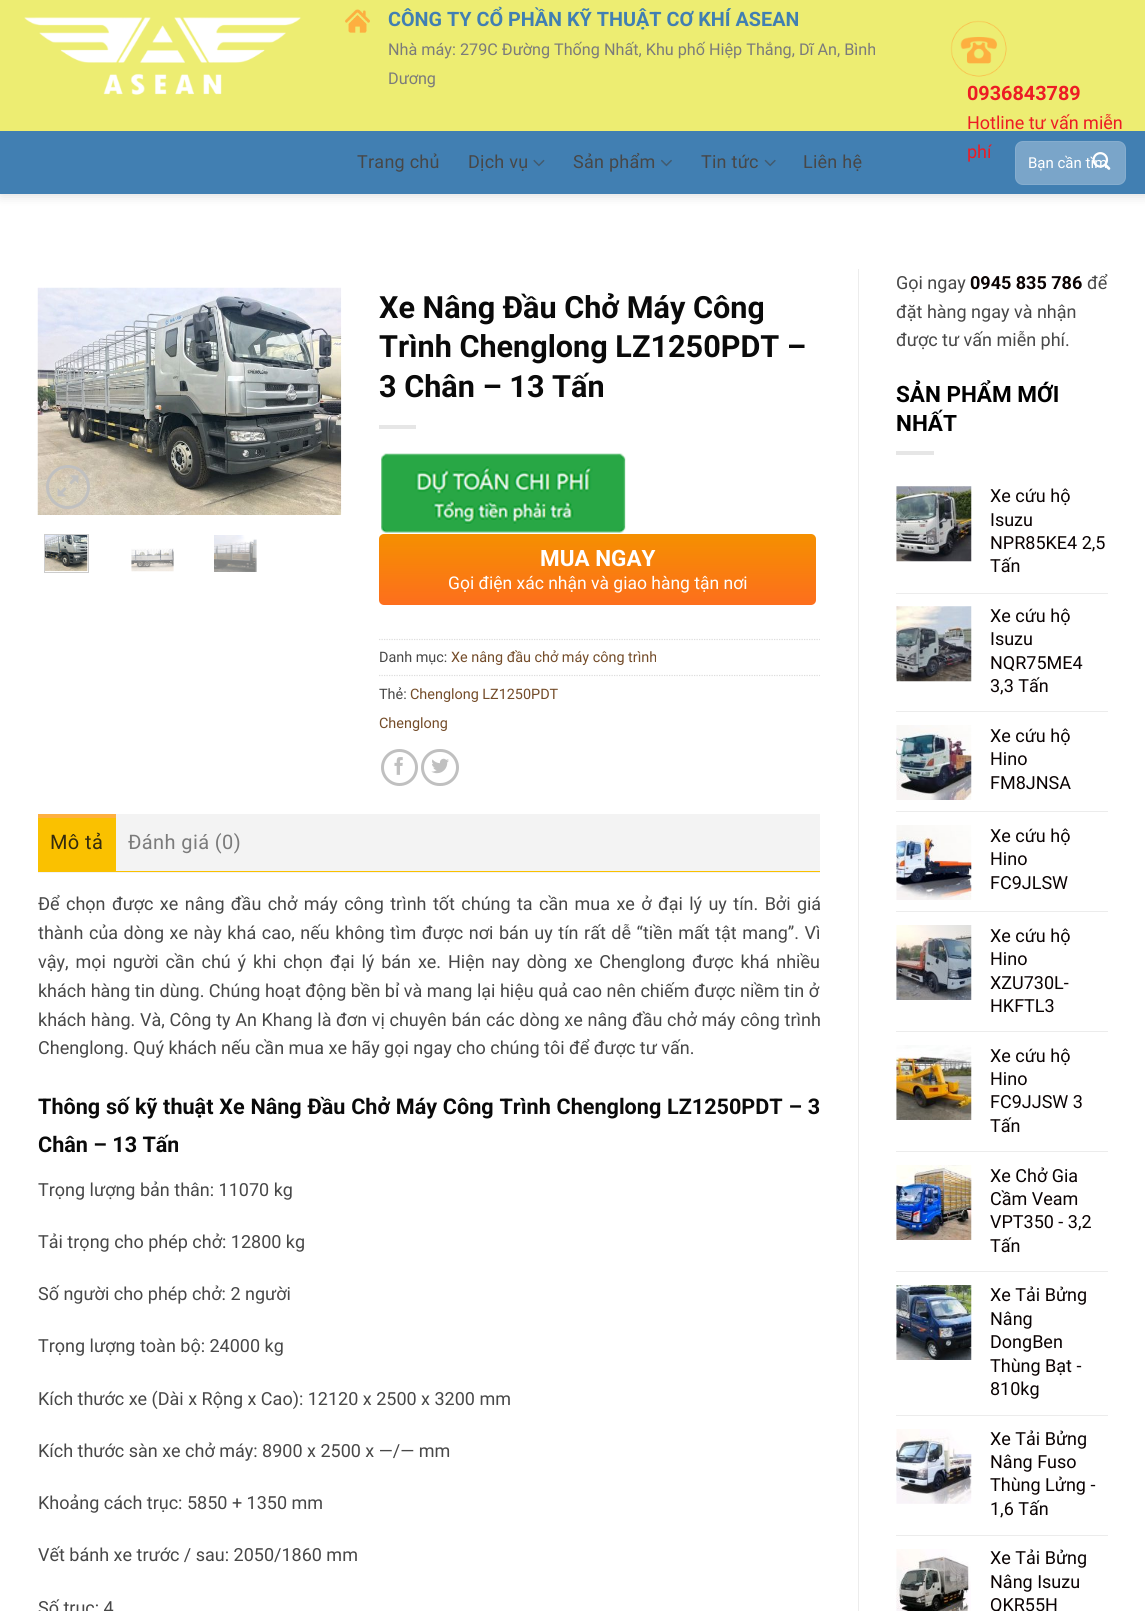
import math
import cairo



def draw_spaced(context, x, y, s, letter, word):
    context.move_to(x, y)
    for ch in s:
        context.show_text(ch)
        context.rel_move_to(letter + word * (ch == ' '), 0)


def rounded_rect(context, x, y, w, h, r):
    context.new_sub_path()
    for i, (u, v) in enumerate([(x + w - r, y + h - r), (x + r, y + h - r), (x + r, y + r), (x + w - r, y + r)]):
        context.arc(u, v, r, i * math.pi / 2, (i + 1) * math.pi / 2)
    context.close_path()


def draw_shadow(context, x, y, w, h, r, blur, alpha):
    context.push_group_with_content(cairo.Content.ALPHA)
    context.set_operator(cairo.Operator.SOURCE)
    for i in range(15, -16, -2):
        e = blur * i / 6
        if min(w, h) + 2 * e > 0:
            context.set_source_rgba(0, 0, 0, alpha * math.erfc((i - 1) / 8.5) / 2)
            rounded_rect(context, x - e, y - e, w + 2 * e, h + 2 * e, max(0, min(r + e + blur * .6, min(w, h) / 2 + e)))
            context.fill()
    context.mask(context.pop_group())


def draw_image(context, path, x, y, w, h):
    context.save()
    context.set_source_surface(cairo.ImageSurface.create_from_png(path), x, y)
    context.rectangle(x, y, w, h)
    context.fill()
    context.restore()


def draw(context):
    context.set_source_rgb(1, 1, 1)
    context.paint()
    context.set_source_rgb(0, 0, 0)
    draw_shadow(context, 1, -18, 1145, 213, 0, 6, 0.15)
    context.set_source_rgb(237 / 255, 237 / 255, 114 / 255)
    context.rectangle(0, 0, 1145, 131)
    context.fill()
    draw_image(context, "images/1.png", 24, 17, 277, 78)
    draw_image(context, "images/2.png", 345, 9, 25, 24)
    draw_image(context, "images/3.png", 950, 20, 57, 57)
    context.set_source_rgb(65 / 255, 127 / 255, 178 / 255)
    context.rectangle(0, 131, 1145, 63)
    context.fill()
    draw_image(context, "images/4.png", 533, 159, 12, 8)
    draw_image(context, "images/5.png", 661, 159, 11, 8)
    draw_image(context, "images/6.png", 764, 159, 12, 8)
    context.set_source_rgb(122 / 255, 165 / 255, 201 / 255)
    rounded_rect(context, 1015, 141, 111, 44, 8)
    context.fill()
    rounded_rect(context, 1015.5, 141.5, 110, 43, 7.5)
    context.set_source_rgba(1, 1, 1, 0.09)
    context.set_line_width(1)
    context.stroke()
    context.set_source_rgb(236 / 255, 236 / 255, 236 / 255)
    context.rectangle(858, 269, 1, 1342)
    context.fill()
    draw_image(context, "images/8.png", 37, 287, 305, 228)
    context.arc(68, 487, 20.5, 0, 2 * math.pi)
    context.set_source_rgb(192 / 255, 192 / 255, 192 / 255)
    context.set_line_width(3)
    context.stroke()
    draw_image(context, "images/9.png", 57, 475, 22, 22)
    context.rectangle(44.5, 534.5, 44, 38)
    context.set_source_rgb(204 / 255, 204 / 255, 204 / 255)
    context.set_line_width(1)
    context.stroke()
    draw_image(context, "images/10.png", 45, 535, 43, 37)
    draw_image(context, "images/11.png", 131, 548, 43, 24)
    draw_image(context, "images/12.png", 214, 535, 43, 37)
    context.set_source_rgb(230 / 255, 230 / 255, 230 / 255)
    context.rectangle(379, 425, 37, 4)
    context.fill()
    draw_image(context, "images/13.png", 381, 453, 245, 80)
    gradient = cairo.LinearGradient(598, 534, 598, 605)
    gradient.add_color_stop_rgba(0, 245 / 255, 144 / 255, 0, 1)
    gradient.add_color_stop_rgba(1, 253 / 255, 110 / 255, 29 / 255, 1)
    context.set_source(gradient)
    rounded_rect(context, 379, 534, 437, 71, 5)
    context.fill()
    context.new_path()
    context.move_to(379, 639.5)
    context.line_to(820, 639.5)
    context.set_source_rgb(221 / 255, 221 / 255, 221 / 255)
    context.set_line_width(1.2)
    context.set_dash([1.25, 1.25])
    context.stroke()
    context.new_path()
    context.move_to(379, 675.5)
    context.line_to(820, 675.5)
    context.stroke()
    context.arc(399.5, 767.5, 17, 0, 2 * math.pi)
    context.set_source_rgb(192 / 255, 192 / 255, 192 / 255)
    context.set_line_width(3)
    context.set_dash([])
    context.stroke()
    draw_image(context, "images/14.png", 394, 757, 9, 18)
    rounded_rect(context, 422.5, 750.5, 35, 34, 17)
    context.stroke()
    draw_image(context, "images/15.png", 431, 758, 18, 16)
    context.set_source_rgb(243 / 255, 243 / 255, 243 / 255)
    context.rectangle(38, 814, 782, 59)
    context.fill()
    context.set_source_rgb(250 / 255, 193 / 255, 0)
    context.rectangle(38, 871, 782, 1)
    context.fill()
    context.rectangle(38, 818, 78, 53)
    context.fill()
    context.set_source_rgb(254 / 255, 176 / 255, 65 / 255)
    context.rectangle(38, 814, 78, 4)
    context.fill()
    context.set_source_rgb(230 / 255, 230 / 255, 230 / 255)
    context.rectangle(896, 451, 38, 4)
    context.fill()
    draw_image(context, "images/16.png", 896, 486, 76, 76)
    context.set_source_rgb(236 / 255, 236 / 255, 236 / 255)
    context.rectangle(896, 593, 212, 1)
    context.fill()
    draw_image(context, "images/17.png", 896, 606, 76, 76)
    context.rectangle(896, 711, 212, 1)
    context.fill()
    draw_image(context, "images/18.png", 896, 725, 76, 75)
    context.rectangle(896, 811, 212, 1)
    context.fill()
    draw_image(context, "images/19.png", 896, 825, 76, 75)
    context.rectangle(896, 911, 212, 1)
    context.fill()
    draw_image(context, "images/20.png", 896, 925, 76, 75)
    context.rectangle(896, 1031, 212, 1)
    context.fill()
    draw_image(context, "images/21.png", 896, 1045, 76, 75)
    context.rectangle(896, 1151, 212, 1)
    context.fill()
    draw_image(context, "images/22.png", 896, 1165, 76, 75)
    context.rectangle(896, 1271, 212, 1)
    context.fill()
    draw_image(context, "images/23.png", 896, 1285, 76, 75)
    context.rectangle(896, 1415, 212, 1)
    context.fill()
    draw_image(context, "images/24.png", 896, 1429, 76, 75)
    context.rectangle(896, 1535, 212, 1)
    context.fill()
    draw_image(context, "images/25.png", 896, 1549, 75, 62)
    context.select_font_face("Roboto", cairo.FontSlant.NORMAL, cairo.FontWeight.BOLD)
    context.set_font_size(19.8)
    context.set_source_rgb(65 / 255, 127 / 255, 178 / 255)
    context.move_to(388, 26)
    context.show_text("CÔNG TY CỔ PHẦN KỸ THUẬT CƠ KHÍ ASEAN")
    context.select_font_face("Roboto")
    context.set_font_size(16.2)
    context.set_source_rgb(123 / 255, 123 / 255, 123 / 255)
    context.move_to(388, 55)
    context.show_text("Nhà máy: 279C Đường Thống Nhất, Khu phố Hiệp Thắng, Dĩ An, Bình")
    context.move_to(388, 84)
    context.show_text("Dương")
    context.select_font_face("Roboto", cairo.FontSlant.NORMAL, cairo.FontWeight.BOLD)
    context.set_font_size(19.8)
    context.set_source_rgb(237 / 255, 28 / 255, 36 / 255)
    context.move_to(967, 100)
    context.show_text("0936843789")
    context.select_font_face("Roboto")
    context.set_font_size(18)
    context.move_to(967, 129)
    context.show_text("Hotline tư vấn miễn")
    context.move_to(967, 158)
    context.show_text("phí")
    context.set_source_rgb(71 / 255, 71 / 255, 71 / 255)
    draw_spaced(context, 357, 168, "Trang chủ", 0.25, 0)
    draw_spaced(context, 468, 168, "Dịch vụ", 0.25, 0)
    draw_spaced(context, 573, 168, "Sản phẩm", 0.25, 0)
    draw_spaced(context, 701, 168, "Tin tức", 0.25, 0)
    draw_spaced(context, 803, 168, "Liên hệ", 0.25, 0)
    context.set_font_size(15)
    context.set_source_rgb(1, 1, 1)
    context.move_to(1028, 168)
    context.show_text("Bạn cần tìm")
    draw_image(context, "images/7.png", 1092, 152, 19, 18)
    context.select_font_face("Roboto", cairo.FontSlant.NORMAL, cairo.FontWeight.BOLD)
    context.set_font_size(30.6)
    context.set_source_rgb(10 / 255, 10 / 255, 10 / 255)
    context.move_to(379, 318)
    context.show_text("Xe Nâng Đầu Chở Máy Công")
    context.move_to(379, 357)
    context.show_text("Trình Chenglong LZ1250PDT –")
    context.move_to(379, 397)
    context.show_text("3 Chân – 13 Tấn")
    context.set_font_size(22.5)
    context.set_source_rgb(1, 1, 1)
    context.move_to(540, 566)
    context.show_text("MUA NGAY")
    context.select_font_face("Roboto")
    context.set_font_size(17.5)
    context.move_to(448, 589)
    context.show_text("Gọi điện xác nhận và giao hàng tận nơi")
    context.set_font_size(14.4)
    context.set_source_rgb(71 / 255, 71 / 255, 71 / 255)
    context.move_to(379, 662)
    context.show_text("Danh mục:")
    context.set_source_rgb(116 / 255, 76 / 255, 41 / 255)
    context.move_to(451, 662)
    context.show_text("Xe nâng đầu chở máy công trình")
    context.set_source_rgb(71 / 255, 71 / 255, 71 / 255)
    context.move_to(379, 699)
    context.show_text("Thẻ:")
    context.set_source_rgb(116 / 255, 76 / 255, 41 / 255)
    context.move_to(410, 699)
    context.show_text("Chenglong LZ1250PDT")
    context.move_to(379, 728)
    context.show_text("Chenglong")
    context.set_font_size(20)
    context.set_source_rgb(52 / 255, 43 / 255, 14 / 255)
    draw_spaced(context, 50, 849, "Mô tả", 0.4, 0)
    context.set_source_rgb(123 / 255, 123 / 255, 123 / 255)
    draw_spaced(context, 128, 849, "Đánh giá (0)", 0.4, 0)
    context.set_font_size(18)
    context.set_source_rgb(71 / 255, 71 / 255, 71 / 255)
    draw_spaced(context, 38, 910, "Để chọn được xe nâng đầu chở máy công trình tốt chúng ta cần mua xe ở đại lý uy tín. Bởi giá", 0, 1.9)
    draw_spaced(context, 38, 939, "thành của dòng xe này khá cao, nếu không tìm được nơi bán uy tín rất dễ “tiền mất tật mang”. Vì", 0, 1.05)
    draw_spaced(context, 38, 968, "vậy, mọi người cần chú ý khi chọn đại lý bán xe. Hiện nay dòng xe Chenglong được khá nhiều", 0, 2.4)
    context.move_to(38, 997)
    context.show_text("khách hàng tin dùng. Chúng hoạt động bền bỉ và mang lại hiệu quả cao nên chiếm được niềm tin ở")
    draw_spaced(context, 38, 1026, "khách hàng. Và, Công ty An Khang là đơn vị chuyên bán các dòng xe nâng đầu chở máy công trình", 0, 0.2)
    context.move_to(38, 1054)
    context.show_text("Chenglong. Quý khách nếu cần mua xe hãy gọi ngay cho chúng tôi để được tư vấn.")
    context.select_font_face("Roboto", cairo.FontSlant.NORMAL, cairo.FontWeight.BOLD)
    context.set_font_size(21.6)
    context.set_source_rgb(10 / 255, 10 / 255, 10 / 255)
    draw_spaced(context, 38, 1114, "Thông số kỹ thuật Xe Nâng Đầu Chở Máy Công Trình Chenglong LZ1250PDT – 3", 0, 0.4)
    context.move_to(38, 1152)
    context.show_text("Chân – 13 Tấn")
    context.select_font_face("Roboto")
    context.set_font_size(18)
    context.set_source_rgb(71 / 255, 71 / 255, 71 / 255)
    context.move_to(38, 1196)
    context.show_text("Trọng lượng bản thân: 11070 kg")
    context.move_to(38, 1248)
    context.show_text("Tải trọng cho phép chở: 12800 kg")
    context.move_to(38, 1300)
    context.show_text("Số người cho phép chở: 2 người")
    context.move_to(38, 1352)
    context.show_text("Trọng lượng toàn bộ: 24000 kg")
    context.move_to(38, 1405)
    context.show_text("Kích thước xe (Dài x Rộng x Cao): 12120 x 2500 x 3200 mm")
    context.move_to(38, 1457)
    context.show_text("Kích thước sàn xe chở máy: 8900 x 2500 x —/— mm")
    context.move_to(38, 1509)
    context.show_text("Khoảng cách trục: 5850 + 1350 mm")
    context.move_to(38, 1561)
    context.show_text("Vết bánh xe trước / sau: 2050/1860 mm")
    context.move_to(38, 1614)
    context.show_text("Số trục: 4")
    context.move_to(896, 289)
    context.show_text("Gọi ngay")
    context.select_font_face("Roboto", cairo.FontSlant.NORMAL, cairo.FontWeight.BOLD)
    context.set_source_rgb(10 / 255, 2 / 255, 2 / 255)
    context.move_to(970, 289)
    context.show_text("0945 835 786")
    context.select_font_face("Roboto")
    context.set_source_rgb(71 / 255, 71 / 255, 71 / 255)
    context.move_to(1087, 289)
    context.show_text("để")
    context.move_to(896, 318)
    context.show_text("đặt hàng ngay và nhận")
    context.move_to(896, 346)
    context.show_text("được tư vấn miễn phí.")
    context.select_font_face("Roboto", cairo.FontSlant.NORMAL, cairo.FontWeight.BOLD)
    context.set_font_size(22.5)
    context.set_source_rgb(0, 0, 0)
    context.move_to(896, 402)
    context.show_text("SẢN PHẨM MỚI")
    context.move_to(896, 431)
    context.show_text("NHẤT")
    context.select_font_face("Roboto")
    context.set_font_size(18)
    context.set_source_rgb(10 / 255, 2 / 255, 2 / 255)
    context.move_to(990, 502)
    context.show_text("Xe cứu hộ")
    context.move_to(990, 526)
    context.show_text("Isuzu")
    context.move_to(990, 549)
    context.show_text("NPR85KE4 2,5")
    context.move_to(990, 572)
    context.show_text("Tấn")
    context.move_to(990, 622)
    context.show_text("Xe cứu hộ")
    context.move_to(990, 645)
    context.show_text("Isuzu")
    context.move_to(990, 669)
    context.show_text("NQR75ME4")
    context.move_to(990, 692)
    context.show_text("3,3 Tấn")
    context.move_to(990, 742)
    context.show_text("Xe cứu hộ")
    context.move_to(990, 765)
    context.show_text("Hino")
    context.move_to(990, 789)
    context.show_text("FM8JNSA")
    context.move_to(990, 842)
    context.show_text("Xe cứu hộ")
    context.move_to(990, 865)
    context.show_text("Hino")
    context.move_to(990, 889)
    context.show_text("FC9JLSW")
    context.move_to(990, 942)
    context.show_text("Xe cứu hộ")
    context.move_to(990, 965)
    context.show_text("Hino")
    context.move_to(990, 989)
    context.show_text("XZU730L-")
    context.move_to(990, 1012)
    context.show_text("HKFTL3")
    context.move_to(990, 1062)
    context.show_text("Xe cứu hộ")
    context.move_to(990, 1085)
    context.show_text("Hino")
    context.move_to(990, 1108)
    context.show_text("FC9JJSW 3")
    context.move_to(990, 1132)
    context.show_text("Tấn")
    context.move_to(990, 1182)
    context.show_text("Xe Chở Gia")
    context.move_to(990, 1205)
    context.show_text("Cầm Veam")
    context.move_to(990, 1228)
    context.show_text("VPT350 - 3,2")
    context.move_to(990, 1252)
    context.show_text("Tấn")
    context.move_to(990, 1301)
    context.show_text("Xe Tải Bửng")
    context.move_to(990, 1325)
    context.show_text("Nâng")
    context.move_to(990, 1348)
    context.show_text("DongBen")
    context.move_to(990, 1372)
    context.show_text("Thùng Bạt -")
    context.move_to(990, 1395)
    context.show_text("810kg")
    context.move_to(990, 1445)
    context.show_text("Xe Tải Bửng")
    context.move_to(990, 1468)
    context.show_text("Nâng Fuso")
    context.move_to(990, 1491)
    context.show_text("Thùng Lửng -")
    context.move_to(990, 1515)
    context.show_text("1,6 Tấn")
    context.move_to(990, 1564)
    context.show_text("Xe Tải Bửng")
    context.move_to(990, 1588)
    context.show_text("Nâng Isuzu")
    context.move_to(990, 1611)
    context.show_text("QKR55H")


surface = cairo.ImageSurface(cairo.Format.RGB24, 1145, 1611)
context = cairo.Context(surface)
options = cairo.FontOptions()
options.set_hint_metrics(cairo.HintMetrics.OFF)
options.set_hint_style(cairo.HintStyle.NONE)
context.set_font_options(options)
context.set_miter_limit(4)
draw(context)
surface.write_to_png("out.png")
